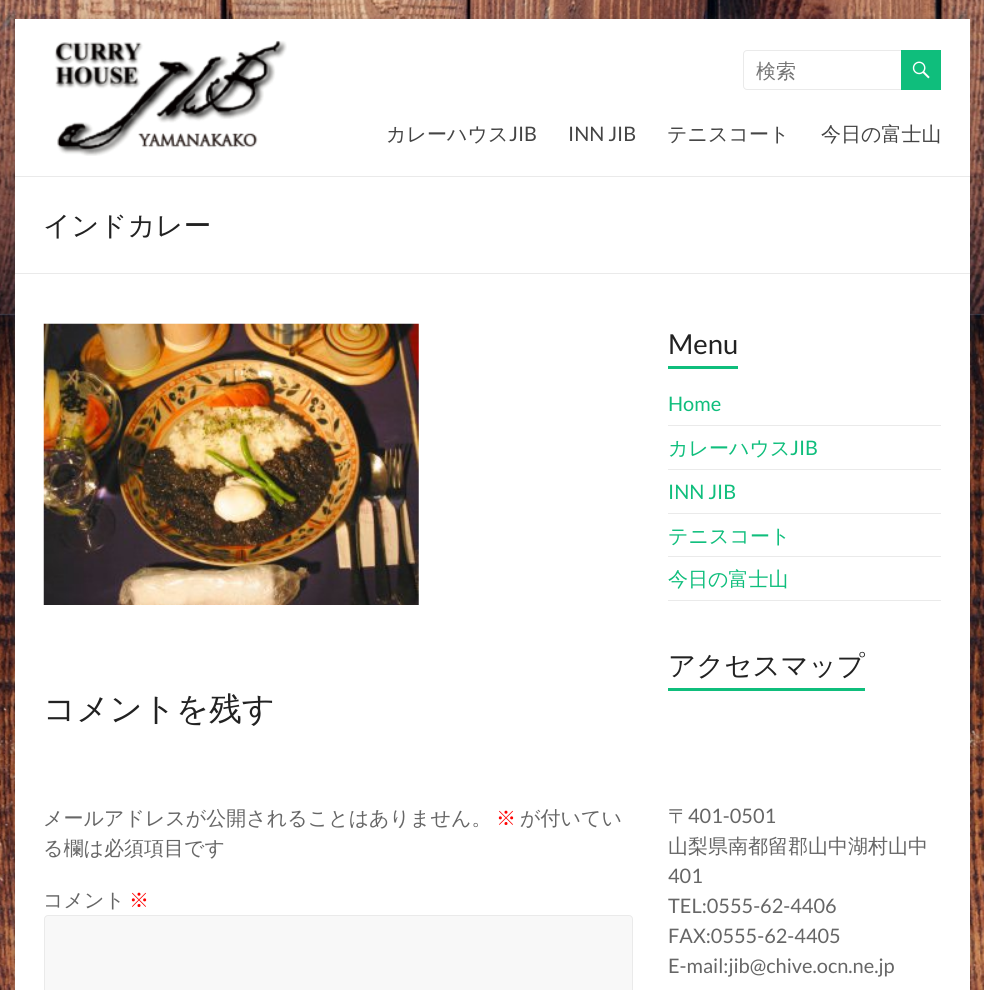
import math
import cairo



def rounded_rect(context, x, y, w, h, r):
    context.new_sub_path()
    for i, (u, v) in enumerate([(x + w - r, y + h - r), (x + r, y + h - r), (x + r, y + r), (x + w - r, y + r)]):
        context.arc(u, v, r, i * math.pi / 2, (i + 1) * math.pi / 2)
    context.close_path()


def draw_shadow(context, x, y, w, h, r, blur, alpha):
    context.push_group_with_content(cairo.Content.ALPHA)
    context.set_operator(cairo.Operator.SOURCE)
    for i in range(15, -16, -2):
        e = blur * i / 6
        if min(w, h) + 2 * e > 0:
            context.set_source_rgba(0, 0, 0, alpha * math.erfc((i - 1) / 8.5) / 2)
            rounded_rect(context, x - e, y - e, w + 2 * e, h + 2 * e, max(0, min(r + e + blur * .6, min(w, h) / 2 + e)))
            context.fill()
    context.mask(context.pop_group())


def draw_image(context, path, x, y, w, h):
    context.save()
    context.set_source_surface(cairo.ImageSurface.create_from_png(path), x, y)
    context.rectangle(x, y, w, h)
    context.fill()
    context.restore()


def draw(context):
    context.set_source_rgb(1, 1, 1)
    context.paint()
    draw_image(context, "images/1.png", 0, 0, 984, 990)
    context.set_source_rgb(100 / 255, 100 / 255, 100 / 255)
    draw_shadow(context, 15, 21, 955, 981, 0, 4, 0.3)
    context.set_source_rgb(1, 1, 1)
    context.rectangle(15, 19, 955, 971)
    context.fill()
    context.set_source_rgb(234 / 255, 234 / 255, 234 / 255)
    context.rectangle(15, 176, 955, 1)
    context.fill()
    draw_image(context, "images/2.png", 54, 40, 233, 116)
    rounded_rect(context, 743.5, 50.5, 161, 39, 3.5)
    context.set_line_width(1)
    context.stroke()
    context.set_source_rgb(15 / 255, 190 / 255, 124 / 255)
    context.rectangle(901, 50, 40, 40)
    context.fill()
    draw_image(context, "images/3.png", 912, 61, 18, 18)
    context.set_source_rgb(234 / 255, 234 / 255, 234 / 255)
    context.rectangle(15, 273, 955, 1)
    context.fill()
    draw_image(context, "images/4.png", 43, 323, 376, 282)
    context.set_source_rgb(248 / 255, 248 / 255, 248 / 255)
    rounded_rect(context, 44.5, 915.5, 588, 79, 3.5)
    context.fill_preserve()
    context.set_source_rgb(234 / 255, 234 / 255, 234 / 255)
    context.stroke()
    context.set_source_rgb(15 / 255, 190 / 255, 124 / 255)
    context.rectangle(668, 366, 70, 3)
    context.fill()
    context.set_source_rgb(234 / 255, 234 / 255, 234 / 255)
    context.rectangle(668, 425, 273, 1)
    context.fill()
    context.rectangle(668, 469, 273, 1)
    context.fill()
    context.rectangle(668, 513, 273, 1)
    context.fill()
    context.rectangle(668, 556, 273, 1)
    context.fill()
    context.rectangle(668, 600, 273, 1)
    context.fill()
    context.set_source_rgb(15 / 255, 190 / 255, 124 / 255)
    context.rectangle(668, 688, 197, 3)
    context.fill()
    context.select_font_face("WenQuanYi Zen Hei Medium")
    context.set_font_size(20)
    context.set_source_rgb(117 / 255, 117 / 255, 117 / 255)
    context.move_to(756, 78)
    context.show_text("検索")
    context.set_source_rgb(68 / 255, 68 / 255, 68 / 255)
    context.move_to(386, 141)
    context.show_text("カレーハウス")
    context.select_font_face("Lato")
    context.move_to(509, 141)
    context.show_text("JIB")
    context.move_to(568, 141)
    context.show_text("INN JIB")
    context.select_font_face("WenQuanYi Zen Hei Medium")
    context.move_to(667, 141)
    context.show_text("テニスコート")
    context.move_to(821, 141)
    context.show_text("今日の富士山")
    context.set_font_size(27.5)
    context.set_source_rgb(34 / 255, 34 / 255, 34 / 255)
    context.move_to(43, 235)
    context.show_text("インドカレー")
    context.set_font_size(32.5)
    context.move_to(43, 720)
    context.show_text("コメントを残す")
    context.set_font_size(20)
    context.set_source_rgb(102 / 255, 102 / 255, 102 / 255)
    context.move_to(43, 825)
    context.show_text("メールアドレスが公開されることはありません。")
    context.set_source_rgb(1, 0, 0)
    context.move_to(496, 825)
    context.show_text("※")
    context.set_source_rgb(102 / 255, 102 / 255, 102 / 255)
    context.move_to(520, 825)
    context.show_text("が付いてい")
    context.move_to(43, 855)
    context.show_text("る欄は必須項目です")
    context.move_to(43, 907)
    context.show_text("コメント")
    context.set_source_rgb(1, 0, 0)
    context.move_to(129, 907)
    context.show_text("※")
    context.select_font_face("Lato")
    context.set_font_size(27.5)
    context.set_source_rgb(34 / 255, 34 / 255, 34 / 255)
    context.move_to(668, 354)
    context.show_text("Menu")
    context.set_font_size(20)
    context.set_source_rgb(15 / 255, 190 / 255, 124 / 255)
    context.move_to(668, 411)
    context.show_text("Home")
    context.select_font_face("WenQuanYi Zen Hei Medium")
    context.move_to(668, 455)
    context.show_text("カレーハウス")
    context.select_font_face("Lato")
    context.move_to(790, 455)
    context.show_text("JIB")
    context.move_to(668, 499)
    context.show_text("INN JIB")
    context.select_font_face("WenQuanYi Zen Hei Medium")
    context.move_to(668, 543)
    context.show_text("テニスコート")
    context.move_to(668, 586)
    context.show_text("今日の富士山")
    context.set_font_size(27.5)
    context.set_source_rgb(34 / 255, 34 / 255, 34 / 255)
    context.move_to(668, 675)
    context.show_text("アクセスマップ")
    context.set_font_size(20)
    context.set_source_rgb(102 / 255, 102 / 255, 102 / 255)
    context.move_to(668, 823)
    context.show_text("〒")
    context.select_font_face("Lato")
    context.move_to(688, 823)
    context.show_text("401-0501")
    context.select_font_face("WenQuanYi Zen Hei Medium")
    context.move_to(668, 853)
    context.show_text("山梨県南都留郡山中湖村山中")
    context.select_font_face("Lato")
    context.move_to(668, 883)
    context.show_text("401")
    context.move_to(668, 913)
    context.show_text("TEL:0555-62-4406")
    context.move_to(668, 943)
    context.show_text("FAX:0555-62-4405")
    context.move_to(668, 973)
    context.show_text("E-mail:jib@chive.ocn.ne.jp")


surface = cairo.ImageSurface(cairo.Format.RGB24, 984, 990)
context = cairo.Context(surface)
options = cairo.FontOptions()
options.set_hint_metrics(cairo.HintMetrics.OFF)
options.set_hint_style(cairo.HintStyle.NONE)
context.set_font_options(options)
context.set_miter_limit(4)
draw(context)
surface.write_to_png("out.png")
